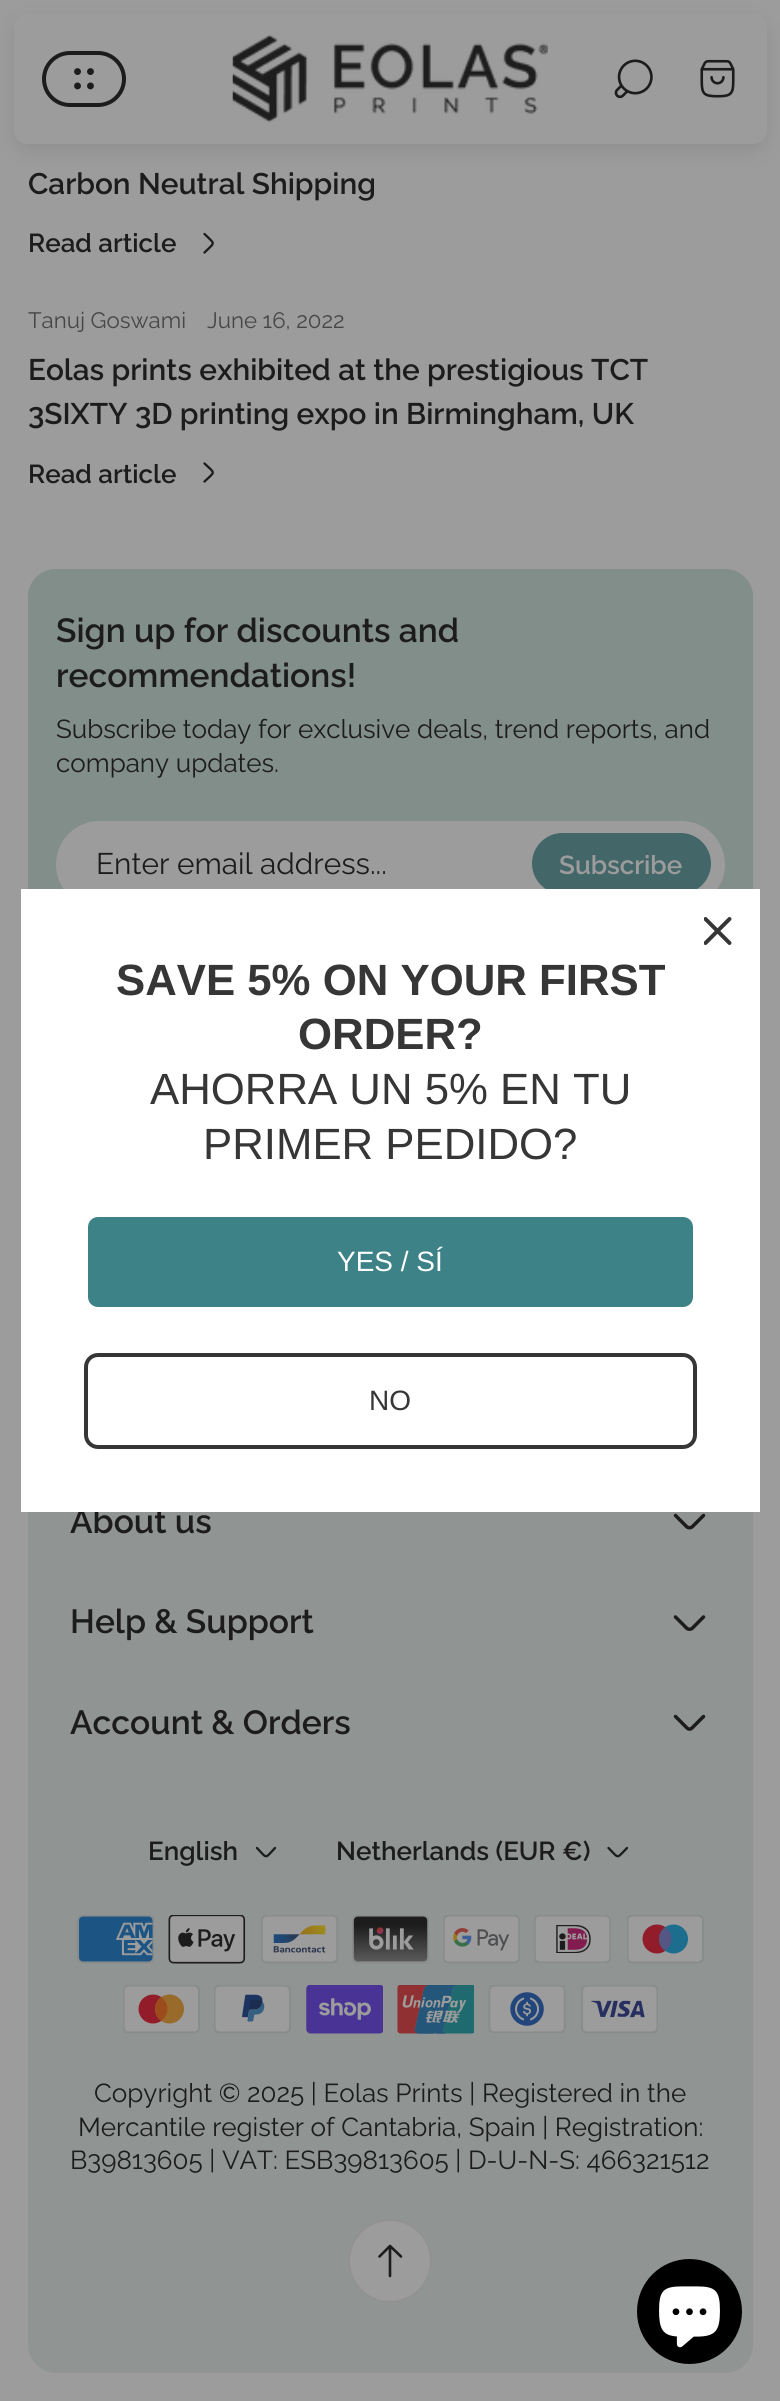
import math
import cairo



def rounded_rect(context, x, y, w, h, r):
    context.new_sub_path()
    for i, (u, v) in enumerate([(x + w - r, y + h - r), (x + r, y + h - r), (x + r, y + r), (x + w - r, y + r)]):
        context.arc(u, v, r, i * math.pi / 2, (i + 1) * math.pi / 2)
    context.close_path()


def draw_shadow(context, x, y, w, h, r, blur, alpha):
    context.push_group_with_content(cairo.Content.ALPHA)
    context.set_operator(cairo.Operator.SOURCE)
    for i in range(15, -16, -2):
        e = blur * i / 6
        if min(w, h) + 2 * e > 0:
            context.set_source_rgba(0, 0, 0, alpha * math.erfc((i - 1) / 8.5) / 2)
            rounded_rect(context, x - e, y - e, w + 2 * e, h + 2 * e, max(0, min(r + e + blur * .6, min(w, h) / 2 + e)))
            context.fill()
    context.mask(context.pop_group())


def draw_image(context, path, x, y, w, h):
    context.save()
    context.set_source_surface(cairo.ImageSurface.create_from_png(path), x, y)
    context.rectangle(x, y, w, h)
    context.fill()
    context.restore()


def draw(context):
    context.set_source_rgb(156 / 255, 156 / 255, 156 / 255)
    context.paint()
    context.set_source_rgb(28 / 255, 28 / 255, 28 / 255)
    draw_shadow(context, 14, 21, 753, 130, 14, 9.5, 0.1)
    context.set_source_rgb(156 / 255, 156 / 255, 156 / 255)
    rounded_rect(context, 14, 14, 753, 130, 14)
    context.fill()
    rounded_rect(context, 44, 53, 80, 52, 26)
    context.set_source_rgb(28 / 255, 28 / 255, 28 / 255)
    context.set_line_width(4)
    context.stroke()
    draw_image(context, "images/1.png", 74, 68, 20, 22)
    draw_image(context, "images/2.png", 232, 34, 316, 89)
    draw_image(context, "images/3.png", 614, 59, 39, 40)
    draw_image(context, "images/4.png", 700, 59, 35, 39)
    context.new_path()
    context.move_to(204.5, 252.5)
    context.curve_to(215.5, 241.5, 215.5, 245, 204.5, 234)
    context.set_line_width(2.3)
    context.set_line_cap(cairo.LineCap.ROUND)
    context.set_line_join(cairo.LineJoin.ROUND)
    context.stroke()
    context.new_path()
    context.move_to(204.5, 481.5)
    context.curve_to(215.5, 471, 215.5, 474, 204.5, 463.5)
    context.stroke()
    context.set_source_rgb(144 / 255, 149 / 255, 147 / 255)
    rounded_rect(context, 28, 569, 725, 1804, 28)
    context.fill()
    context.set_source_rgb(130 / 255, 142 / 255, 137 / 255)
    context.new_path()
    context.move_to(56, 569)
    context.line_to(725, 569)
    context.curve_to(740.5, 569, 753, 581.5, 753, 597)
    context.line_to(753, 949)
    context.line_to(28, 949)
    context.line_to(28, 597)
    context.curve_to(28, 581.5, 40.5, 569, 56, 569)
    context.close_path()
    context.fill()
    context.set_source_rgb(156 / 255, 156 / 255, 156 / 255)
    rounded_rect(context, 57, 822, 667, 85, 42.5)
    context.fill_preserve()
    context.set_line_width(2)
    context.set_line_cap(cairo.LineCap.BUTT)
    context.set_line_join(cairo.LineJoin.MITER)
    context.stroke()
    context.set_source_rgb(67 / 255, 102 / 255, 104 / 255)
    rounded_rect(context, 532, 833, 179, 61, 30.5)
    context.fill()
    context.new_path()
    context.move_to(703.5, 1515.5)
    context.line_to(692, 1527)
    context.curve_to(690.5, 1528, 688.5, 1528, 687, 1527)
    context.line_to(675.5, 1515.5)
    context.set_source_rgb(28 / 255, 28 / 255, 28 / 255)
    context.set_line_width(3.5)
    context.set_line_cap(cairo.LineCap.ROUND)
    context.set_line_join(cairo.LineJoin.ROUND)
    context.stroke()
    context.new_path()
    context.move_to(703.5, 1617)
    context.line_to(692, 1628.5)
    context.curve_to(690.5, 1629.5, 688.5, 1629.5, 687, 1628.5)
    context.line_to(675.5, 1617)
    context.stroke()
    context.new_path()
    context.move_to(703.5, 1716.5)
    context.line_to(692, 1728)
    context.curve_to(690.5, 1729.5, 688.5, 1729.5, 687, 1728)
    context.line_to(675.5, 1716.5)
    context.stroke()
    context.new_path()
    context.move_to(275, 1848)
    context.curve_to(264.5, 1859, 267.5, 1859, 257, 1848)
    context.set_line_width(2.3)
    context.stroke()
    context.new_path()
    context.move_to(627, 1848)
    context.curve_to(616, 1859, 619.5, 1859, 608.5, 1848)
    context.stroke()
    draw_image(context, "images/5.png", 77, 1915, 77, 49)
    draw_image(context, "images/6.png", 168, 1915, 78, 49)
    draw_image(context, "images/7.png", 261, 1915, 77, 49)
    draw_image(context, "images/8.png", 352, 1915, 77, 49)
    draw_image(context, "images/9.png", 443, 1915, 77, 49)
    draw_image(context, "images/10.png", 534, 1915, 77, 48)
    draw_image(context, "images/11.png", 627, 1915, 77, 49)
    draw_image(context, "images/12.png", 123, 1985, 77, 49)
    draw_image(context, "images/13.png", 214, 1985, 77, 49)
    draw_image(context, "images/14.png", 306, 1985, 77, 49)
    draw_image(context, "images/15.png", 397, 1985, 77, 49)
    draw_image(context, "images/16.png", 488, 1985, 78, 48)
    draw_image(context, "images/17.png", 581, 1985, 77, 49)
    context.set_source_rgb(156 / 255, 156 / 255, 156 / 255)
    context.arc(390, 2261, 41, 0, 2 * math.pi)
    context.fill_preserve()
    context.set_source_rgb(145 / 255, 145 / 255, 145 / 255)
    context.set_line_width(2)
    context.set_line_cap(cairo.LineCap.BUTT)
    context.set_line_join(cairo.LineJoin.MITER)
    context.stroke()
    context.new_path()
    context.move_to(401, 2256.5)
    context.line_to(390, 2246)
    context.line_to(379.5, 2256.5)
    context.move_to(390, 2276)
    context.line_to(390, 2246.5)
    context.set_source_rgb(28 / 255, 28 / 255, 28 / 255)
    context.set_line_width(2.6)
    context.set_line_cap(cairo.LineCap.ROUND)
    context.set_line_join(cairo.LineJoin.ROUND)
    context.stroke()
    context.set_source_rgb(0, 0, 0)
    context.arc(689.5, 2311.5, 52.5, 0, 2 * math.pi)
    context.fill()
    draw_image(context, "images/19.png", 659, 2286, 61, 62)
    context.select_font_face("Raleway SemiBold")
    context.set_font_size(29.75)
    context.set_source_rgb(28 / 255, 28 / 255, 28 / 255)
    context.move_to(28, 194)
    context.show_text("Carbon Neutral Shipping")
    context.set_font_size(26)
    context.move_to(28, 252)
    context.show_text("Read article")
    context.select_font_face("Raleway")
    context.set_font_size(22.25)
    context.set_source_rgb(70 / 255, 70 / 255, 70 / 255)
    context.move_to(28, 328)
    context.show_text("Tanuj Goswami")
    context.move_to(207, 328)
    context.show_text("June 16, 2022")
    context.select_font_face("Raleway SemiBold")
    context.set_font_size(29.75)
    context.set_source_rgb(28 / 255, 28 / 255, 28 / 255)
    context.move_to(28, 380)
    context.show_text("Eolas prints exhibited at the prestigious TCT")
    context.move_to(28, 424)
    context.show_text("3SIXTY 3D printing expo in Birmingham, UK")
    context.set_font_size(26)
    context.move_to(28, 483)
    context.show_text("Read article")
    context.set_font_size(33.5)
    context.move_to(56, 642)
    context.show_text("Sign up for discounts and")
    context.move_to(56, 687)
    context.show_text("recommendations!")
    context.select_font_face("Raleway")
    context.set_font_size(26)
    context.move_to(56, 738)
    context.show_text("Subscribe today for exclusive deals, trend reports, and")
    context.move_to(56, 772)
    context.show_text("company updates.")
    context.set_font_size(29.75)
    context.move_to(96, 874)
    context.show_text("Enter email address...")
    context.select_font_face("Raleway SemiBold")
    context.set_font_size(26)
    context.set_source_rgb(156 / 255, 156 / 255, 156 / 255)
    context.move_to(559, 874)
    context.show_text("Subscribe")
    context.set_font_size(33.5)
    context.set_source_rgb(28 / 255, 28 / 255, 28 / 255)
    context.move_to(70, 1533)
    context.show_text("About us")
    context.move_to(70, 1633)
    context.show_text("Help & Support")
    context.move_to(70, 1734)
    context.show_text("Account & Orders")
    context.set_font_size(26)
    context.move_to(148, 1860)
    context.show_text("English")
    context.move_to(336, 1860)
    context.show_text("Netherlands (EUR €)")
    context.select_font_face("Raleway")
    context.move_to(94, 2102)
    context.show_text("Copyright © 2025 | Eolas Prints | Registered in the")
    context.move_to(78, 2136)
    context.show_text("Mercantile register of Cantabria, Spain | Registration:")
    context.move_to(70, 2169)
    context.show_text("B39813605 | VAT: ESB39813605 | D-U-N-S: 466321512")
    context.set_source_rgb(1, 1, 1)
    context.rectangle(21, 889, 739, 623)
    context.fill()
    draw_image(context, "images/18.png", 704, 917, 28, 28)
    context.select_font_face("Liberation Sans", cairo.FontSlant.NORMAL, cairo.FontWeight.BOLD)
    context.set_font_size(43.75)
    context.set_source_rgb(54 / 255, 54 / 255, 54 / 255)
    context.move_to(116, 995)
    context.show_text("SAVE 5% ON YOUR FIRST")
    context.move_to(298, 1049)
    context.show_text("ORDER?")
    context.select_font_face("Liberation Sans")
    context.move_to(150, 1104)
    context.show_text("AHORRA UN 5% EN TU")
    context.move_to(203, 1159)
    context.show_text("PRIMER PEDIDO?")
    context.set_source_rgb(60 / 255, 130 / 255, 135 / 255)
    rounded_rect(context, 86, 1215, 609, 94, 12)
    context.fill_preserve()
    context.set_source_rgb(1, 1, 1)
    context.set_line_width(4)
    context.set_line_cap(cairo.LineCap.BUTT)
    context.set_line_join(cairo.LineJoin.MITER)
    context.stroke()
    context.set_font_size(28)
    context.move_to(337, 1271)
    context.show_text("YES / SÍ")
    rounded_rect(context, 86, 1355, 609, 92, 12)
    context.set_source_rgb(54 / 255, 54 / 255, 54 / 255)
    context.stroke()
    context.move_to(369, 1410)
    context.show_text("NO")


surface = cairo.ImageSurface(cairo.Format.RGB24, 780, 2401)
context = cairo.Context(surface)
options = cairo.FontOptions()
options.set_hint_metrics(cairo.HintMetrics.OFF)
options.set_hint_style(cairo.HintStyle.NONE)
context.set_font_options(options)
context.set_miter_limit(4)
draw(context)
surface.write_to_png("out.png")
